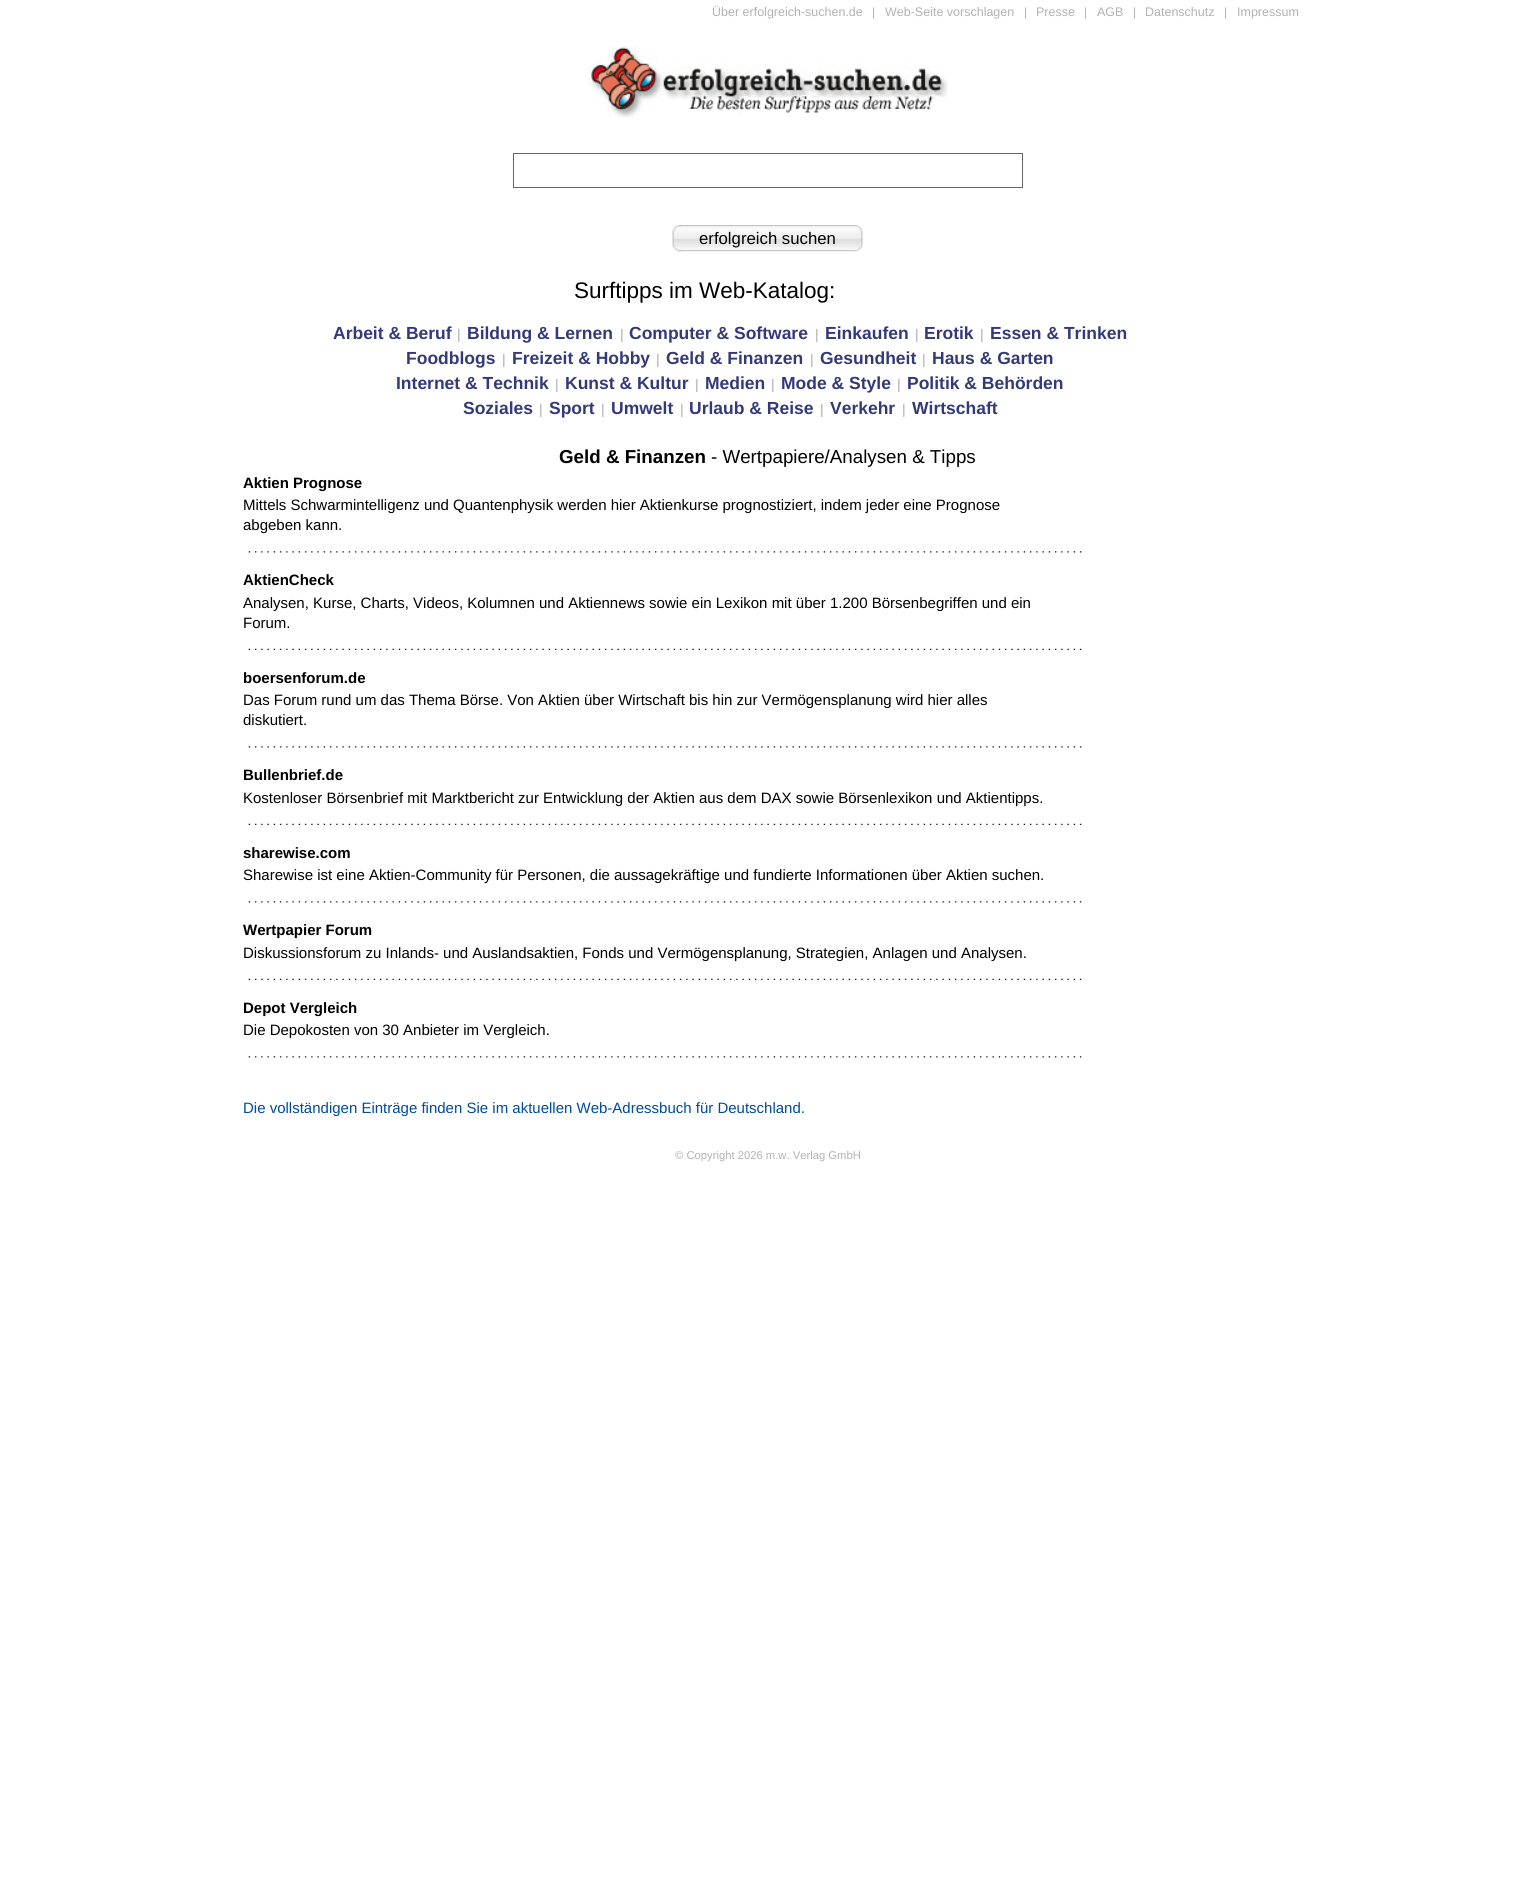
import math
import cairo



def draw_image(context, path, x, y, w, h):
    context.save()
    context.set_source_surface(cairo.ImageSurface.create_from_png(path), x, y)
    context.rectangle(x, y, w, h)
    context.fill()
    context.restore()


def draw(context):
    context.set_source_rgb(1, 1, 1)
    context.paint()
    draw_image(context, "images/1.png", 587, 46, 362, 72)
    context.rectangle(513.5, 153.5, 509, 34)
    context.set_source_rgb(102 / 255, 102 / 255, 102 / 255)
    context.set_line_width(1)
    context.stroke()
    draw_image(context, "images/2.png", 672, 225, 191, 27)
    draw_image(context, "images/3.png", 248, 551, 834, 2)
    draw_image(context, "images/4.png", 248, 648, 834, 2)
    draw_image(context, "images/3.png", 248, 746, 834, 2)
    draw_image(context, "images/4.png", 248, 823, 834, 2)
    draw_image(context, "images/3.png", 248, 901, 834, 2)
    draw_image(context, "images/4.png", 248, 978, 834, 2)
    draw_image(context, "images/3.png", 248, 1056, 834, 2)
    context.select_font_face("Liberation Sans")
    context.set_font_size(12.5)
    context.set_source_rgb(178 / 255, 178 / 255, 178 / 255)
    context.move_to(712, 16)
    context.show_text("Über erfolgreich-suchen.de")
    context.set_font_size(12)
    context.move_to(872, 16)
    context.show_text("|")
    context.set_font_size(12.5)
    context.move_to(885, 16)
    context.show_text("Web-Seite vorschlagen")
    context.set_font_size(12)
    context.move_to(1024, 16)
    context.show_text("|")
    context.set_font_size(12.5)
    context.move_to(1036, 16)
    context.show_text("Presse")
    context.set_font_size(12)
    context.move_to(1084, 16)
    context.show_text("|")
    context.set_font_size(12.5)
    context.move_to(1097, 16)
    context.show_text("AGB")
    context.set_font_size(12)
    context.move_to(1133, 16)
    context.show_text("|")
    context.set_font_size(12.5)
    context.move_to(1145, 16)
    context.show_text("Datenschutz")
    context.set_font_size(12)
    context.move_to(1224, 16)
    context.show_text("|")
    context.set_font_size(12.5)
    context.move_to(1237, 16)
    context.show_text("Impressum")
    context.set_font_size(16.75)
    context.set_source_rgb(0, 0, 0)
    context.move_to(699, 244)
    context.show_text("erfolgreich suchen")
    context.set_font_size(22.5)
    context.move_to(574, 298)
    context.show_text("Surftipps im Web-Katalog:")
    context.select_font_face("Liberation Sans", cairo.FontSlant.NORMAL, cairo.FontWeight.BOLD)
    context.set_font_size(17.5)
    context.set_source_rgb(52 / 255, 57 / 255, 121 / 255)
    context.move_to(333, 339)
    context.show_text("Arbeit & Beruf")
    context.select_font_face("Liberation Sans")
    context.set_font_size(14)
    context.set_source_rgb(172 / 255, 172 / 255, 172 / 255)
    context.move_to(457, 339)
    context.show_text("|")
    context.select_font_face("Liberation Sans", cairo.FontSlant.NORMAL, cairo.FontWeight.BOLD)
    context.set_font_size(17.5)
    context.set_source_rgb(52 / 255, 57 / 255, 121 / 255)
    context.move_to(467, 339)
    context.show_text("Bildung & Lernen")
    context.select_font_face("Liberation Sans")
    context.set_font_size(14)
    context.set_source_rgb(172 / 255, 172 / 255, 172 / 255)
    context.move_to(620, 339)
    context.show_text("|")
    context.select_font_face("Liberation Sans", cairo.FontSlant.NORMAL, cairo.FontWeight.BOLD)
    context.set_font_size(17.5)
    context.set_source_rgb(52 / 255, 57 / 255, 121 / 255)
    context.move_to(629, 339)
    context.show_text("Computer & Software")
    context.select_font_face("Liberation Sans")
    context.set_font_size(14)
    context.set_source_rgb(172 / 255, 172 / 255, 172 / 255)
    context.move_to(815, 339)
    context.show_text("|")
    context.select_font_face("Liberation Sans", cairo.FontSlant.NORMAL, cairo.FontWeight.BOLD)
    context.set_font_size(17.5)
    context.set_source_rgb(52 / 255, 57 / 255, 121 / 255)
    context.move_to(825, 339)
    context.show_text("Einkaufen")
    context.select_font_face("Liberation Sans")
    context.set_font_size(14)
    context.set_source_rgb(172 / 255, 172 / 255, 172 / 255)
    context.move_to(915, 339)
    context.show_text("|")
    context.select_font_face("Liberation Sans", cairo.FontSlant.NORMAL, cairo.FontWeight.BOLD)
    context.set_font_size(17.5)
    context.set_source_rgb(52 / 255, 57 / 255, 121 / 255)
    context.move_to(924, 339)
    context.show_text("Erotik")
    context.select_font_face("Liberation Sans")
    context.set_font_size(14)
    context.set_source_rgb(172 / 255, 172 / 255, 172 / 255)
    context.move_to(980, 339)
    context.show_text("|")
    context.select_font_face("Liberation Sans", cairo.FontSlant.NORMAL, cairo.FontWeight.BOLD)
    context.set_font_size(17.5)
    context.set_source_rgb(52 / 255, 57 / 255, 121 / 255)
    context.move_to(990, 339)
    context.show_text("Essen & Trinken")
    context.move_to(406, 364)
    context.show_text("Foodblogs")
    context.select_font_face("Liberation Sans")
    context.set_font_size(14)
    context.set_source_rgb(172 / 255, 172 / 255, 172 / 255)
    context.move_to(502, 364)
    context.show_text("|")
    context.select_font_face("Liberation Sans", cairo.FontSlant.NORMAL, cairo.FontWeight.BOLD)
    context.set_font_size(17.5)
    context.set_source_rgb(52 / 255, 57 / 255, 121 / 255)
    context.move_to(512, 364)
    context.show_text("Freizeit & Hobby")
    context.select_font_face("Liberation Sans")
    context.set_font_size(14)
    context.set_source_rgb(172 / 255, 172 / 255, 172 / 255)
    context.move_to(656, 364)
    context.show_text("|")
    context.select_font_face("Liberation Sans", cairo.FontSlant.NORMAL, cairo.FontWeight.BOLD)
    context.set_font_size(17.5)
    context.set_source_rgb(52 / 255, 57 / 255, 121 / 255)
    context.move_to(666, 364)
    context.show_text("Geld & Finanzen")
    context.select_font_face("Liberation Sans")
    context.set_font_size(14)
    context.set_source_rgb(172 / 255, 172 / 255, 172 / 255)
    context.move_to(810, 364)
    context.show_text("|")
    context.select_font_face("Liberation Sans", cairo.FontSlant.NORMAL, cairo.FontWeight.BOLD)
    context.set_font_size(17.5)
    context.set_source_rgb(52 / 255, 57 / 255, 121 / 255)
    context.move_to(820, 364)
    context.show_text("Gesundheit")
    context.select_font_face("Liberation Sans")
    context.set_font_size(14)
    context.set_source_rgb(172 / 255, 172 / 255, 172 / 255)
    context.move_to(922, 364)
    context.show_text("|")
    context.select_font_face("Liberation Sans", cairo.FontSlant.NORMAL, cairo.FontWeight.BOLD)
    context.set_font_size(17.5)
    context.set_source_rgb(52 / 255, 57 / 255, 121 / 255)
    context.move_to(932, 364)
    context.show_text("Haus & Garten")
    context.move_to(396, 389)
    context.show_text("Internet & Technik")
    context.select_font_face("Liberation Sans")
    context.set_font_size(14)
    context.set_source_rgb(172 / 255, 172 / 255, 172 / 255)
    context.move_to(555, 389)
    context.show_text("|")
    context.select_font_face("Liberation Sans", cairo.FontSlant.NORMAL, cairo.FontWeight.BOLD)
    context.set_font_size(17.5)
    context.set_source_rgb(52 / 255, 57 / 255, 121 / 255)
    context.move_to(565, 389)
    context.show_text("Kunst & Kultur")
    context.select_font_face("Liberation Sans")
    context.set_font_size(14)
    context.set_source_rgb(172 / 255, 172 / 255, 172 / 255)
    context.move_to(695, 389)
    context.show_text("|")
    context.select_font_face("Liberation Sans", cairo.FontSlant.NORMAL, cairo.FontWeight.BOLD)
    context.set_font_size(17.5)
    context.set_source_rgb(52 / 255, 57 / 255, 121 / 255)
    context.move_to(705, 389)
    context.show_text("Medien")
    context.select_font_face("Liberation Sans")
    context.set_font_size(14)
    context.set_source_rgb(172 / 255, 172 / 255, 172 / 255)
    context.move_to(771, 389)
    context.show_text("|")
    context.select_font_face("Liberation Sans", cairo.FontSlant.NORMAL, cairo.FontWeight.BOLD)
    context.set_font_size(17.5)
    context.set_source_rgb(52 / 255, 57 / 255, 121 / 255)
    context.move_to(781, 389)
    context.show_text("Mode & Style")
    context.select_font_face("Liberation Sans")
    context.set_font_size(14)
    context.set_source_rgb(172 / 255, 172 / 255, 172 / 255)
    context.move_to(897, 389)
    context.show_text("|")
    context.select_font_face("Liberation Sans", cairo.FontSlant.NORMAL, cairo.FontWeight.BOLD)
    context.set_font_size(17.5)
    context.set_source_rgb(52 / 255, 57 / 255, 121 / 255)
    context.move_to(907, 389)
    context.show_text("Politik & Behörden")
    context.move_to(463, 414)
    context.show_text("Soziales")
    context.select_font_face("Liberation Sans")
    context.set_font_size(14)
    context.set_source_rgb(172 / 255, 172 / 255, 172 / 255)
    context.move_to(539, 414)
    context.show_text("|")
    context.select_font_face("Liberation Sans", cairo.FontSlant.NORMAL, cairo.FontWeight.BOLD)
    context.set_font_size(17.5)
    context.set_source_rgb(52 / 255, 57 / 255, 121 / 255)
    context.move_to(549, 414)
    context.show_text("Sport")
    context.select_font_face("Liberation Sans")
    context.set_font_size(14)
    context.set_source_rgb(172 / 255, 172 / 255, 172 / 255)
    context.move_to(601, 414)
    context.show_text("|")
    context.select_font_face("Liberation Sans", cairo.FontSlant.NORMAL, cairo.FontWeight.BOLD)
    context.set_font_size(17.5)
    context.set_source_rgb(52 / 255, 57 / 255, 121 / 255)
    context.move_to(611, 414)
    context.show_text("Umwelt")
    context.select_font_face("Liberation Sans")
    context.set_font_size(14)
    context.set_source_rgb(172 / 255, 172 / 255, 172 / 255)
    context.move_to(680, 414)
    context.show_text("|")
    context.select_font_face("Liberation Sans", cairo.FontSlant.NORMAL, cairo.FontWeight.BOLD)
    context.set_font_size(17.5)
    context.set_source_rgb(52 / 255, 57 / 255, 121 / 255)
    context.move_to(689, 414)
    context.show_text("Urlaub & Reise")
    context.select_font_face("Liberation Sans")
    context.set_font_size(14)
    context.set_source_rgb(172 / 255, 172 / 255, 172 / 255)
    context.move_to(820, 414)
    context.show_text("|")
    context.select_font_face("Liberation Sans", cairo.FontSlant.NORMAL, cairo.FontWeight.BOLD)
    context.set_font_size(17.5)
    context.set_source_rgb(52 / 255, 57 / 255, 121 / 255)
    context.move_to(830, 414)
    context.show_text("Verkehr")
    context.select_font_face("Liberation Sans")
    context.set_font_size(14)
    context.set_source_rgb(172 / 255, 172 / 255, 172 / 255)
    context.move_to(902, 414)
    context.show_text("|")
    context.select_font_face("Liberation Sans", cairo.FontSlant.NORMAL, cairo.FontWeight.BOLD)
    context.set_font_size(17.5)
    context.set_source_rgb(52 / 255, 57 / 255, 121 / 255)
    context.move_to(912, 414)
    context.show_text("Wirtschaft")
    context.set_font_size(18.75)
    context.set_source_rgb(0, 0, 0)
    context.move_to(559, 463)
    context.show_text("Geld & Finanzen")
    context.select_font_face("Liberation Sans")
    context.move_to(711, 463)
    context.show_text("- Wertpapiere/Analysen & Tipps")
    context.select_font_face("Liberation Sans", cairo.FontSlant.NORMAL, cairo.FontWeight.BOLD)
    context.set_font_size(15)
    context.move_to(243, 488)
    context.show_text("Aktien Prognose")
    context.select_font_face("Liberation Sans")
    context.move_to(243, 510)
    context.show_text("Mittels Schwarmintelligenz und Quantenphysik werden hier Aktienkurse prognostiziert, indem jeder eine Prognose")
    context.move_to(243, 530)
    context.show_text("abgeben kann.")
    context.select_font_face("Liberation Sans", cairo.FontSlant.NORMAL, cairo.FontWeight.BOLD)
    context.move_to(243, 585)
    context.show_text("AktienCheck")
    context.select_font_face("Liberation Sans")
    context.move_to(243, 608)
    context.show_text("Analysen, Kurse, Charts, Videos, Kolumnen und Aktiennews sowie ein Lexikon mit über 1.200 Börsenbegriffen und ein")
    context.move_to(243, 628)
    context.show_text("Forum.")
    context.select_font_face("Liberation Sans", cairo.FontSlant.NORMAL, cairo.FontWeight.BOLD)
    context.move_to(243, 683)
    context.show_text("boersenforum.de")
    context.select_font_face("Liberation Sans")
    context.move_to(243, 705)
    context.show_text("Das Forum rund um das Thema Börse. Von Aktien über Wirtschaft bis hin zur Vermögensplanung wird hier alles")
    context.move_to(243, 725)
    context.show_text("diskutiert.")
    context.select_font_face("Liberation Sans", cairo.FontSlant.NORMAL, cairo.FontWeight.BOLD)
    context.move_to(243, 780)
    context.show_text("Bullenbrief.de")
    context.select_font_face("Liberation Sans")
    context.move_to(243, 803)
    context.show_text("Kostenloser Börsenbrief mit Marktbericht zur Entwicklung der Aktien aus dem DAX sowie Börsenlexikon und Aktientipps.")
    context.select_font_face("Liberation Sans", cairo.FontSlant.NORMAL, cairo.FontWeight.BOLD)
    context.move_to(243, 858)
    context.show_text("sharewise.com")
    context.select_font_face("Liberation Sans")
    context.move_to(243, 880)
    context.show_text("Sharewise ist eine Aktien-Community für Personen, die aussagekräftige und fundierte Informationen über Aktien suchen.")
    context.select_font_face("Liberation Sans", cairo.FontSlant.NORMAL, cairo.FontWeight.BOLD)
    context.move_to(243, 935)
    context.show_text("Wertpapier Forum")
    context.select_font_face("Liberation Sans")
    context.move_to(243, 958)
    context.show_text("Diskussionsforum zu Inlands- und Auslandsaktien, Fonds und Vermögensplanung, Strategien, Anlagen und Analysen.")
    context.select_font_face("Liberation Sans", cairo.FontSlant.NORMAL, cairo.FontWeight.BOLD)
    context.move_to(243, 1013)
    context.show_text("Depot Vergleich")
    context.select_font_face("Liberation Sans")
    context.move_to(243, 1035)
    context.show_text("Die Depokosten von 30 Anbieter im Vergleich.")
    context.set_source_rgb(0, 74 / 255, 153 / 255)
    context.move_to(243, 1113)
    context.show_text("Die vollständigen Einträge finden Sie im aktuellen Web-Adressbuch für Deutschland.")
    context.set_font_size(11.25)
    context.set_source_rgb(178 / 255, 178 / 255, 178 / 255)
    context.move_to(675, 1159)
    context.show_text("© Copyright 2026 m.w. Verlag GmbH")


surface = cairo.ImageSurface(cairo.Format.RGB24, 1535, 1889)
context = cairo.Context(surface)
options = cairo.FontOptions()
options.set_hint_metrics(cairo.HintMetrics.OFF)
options.set_hint_style(cairo.HintStyle.NONE)
context.set_font_options(options)
context.set_miter_limit(4)
draw(context)
surface.write_to_png("out.png")
